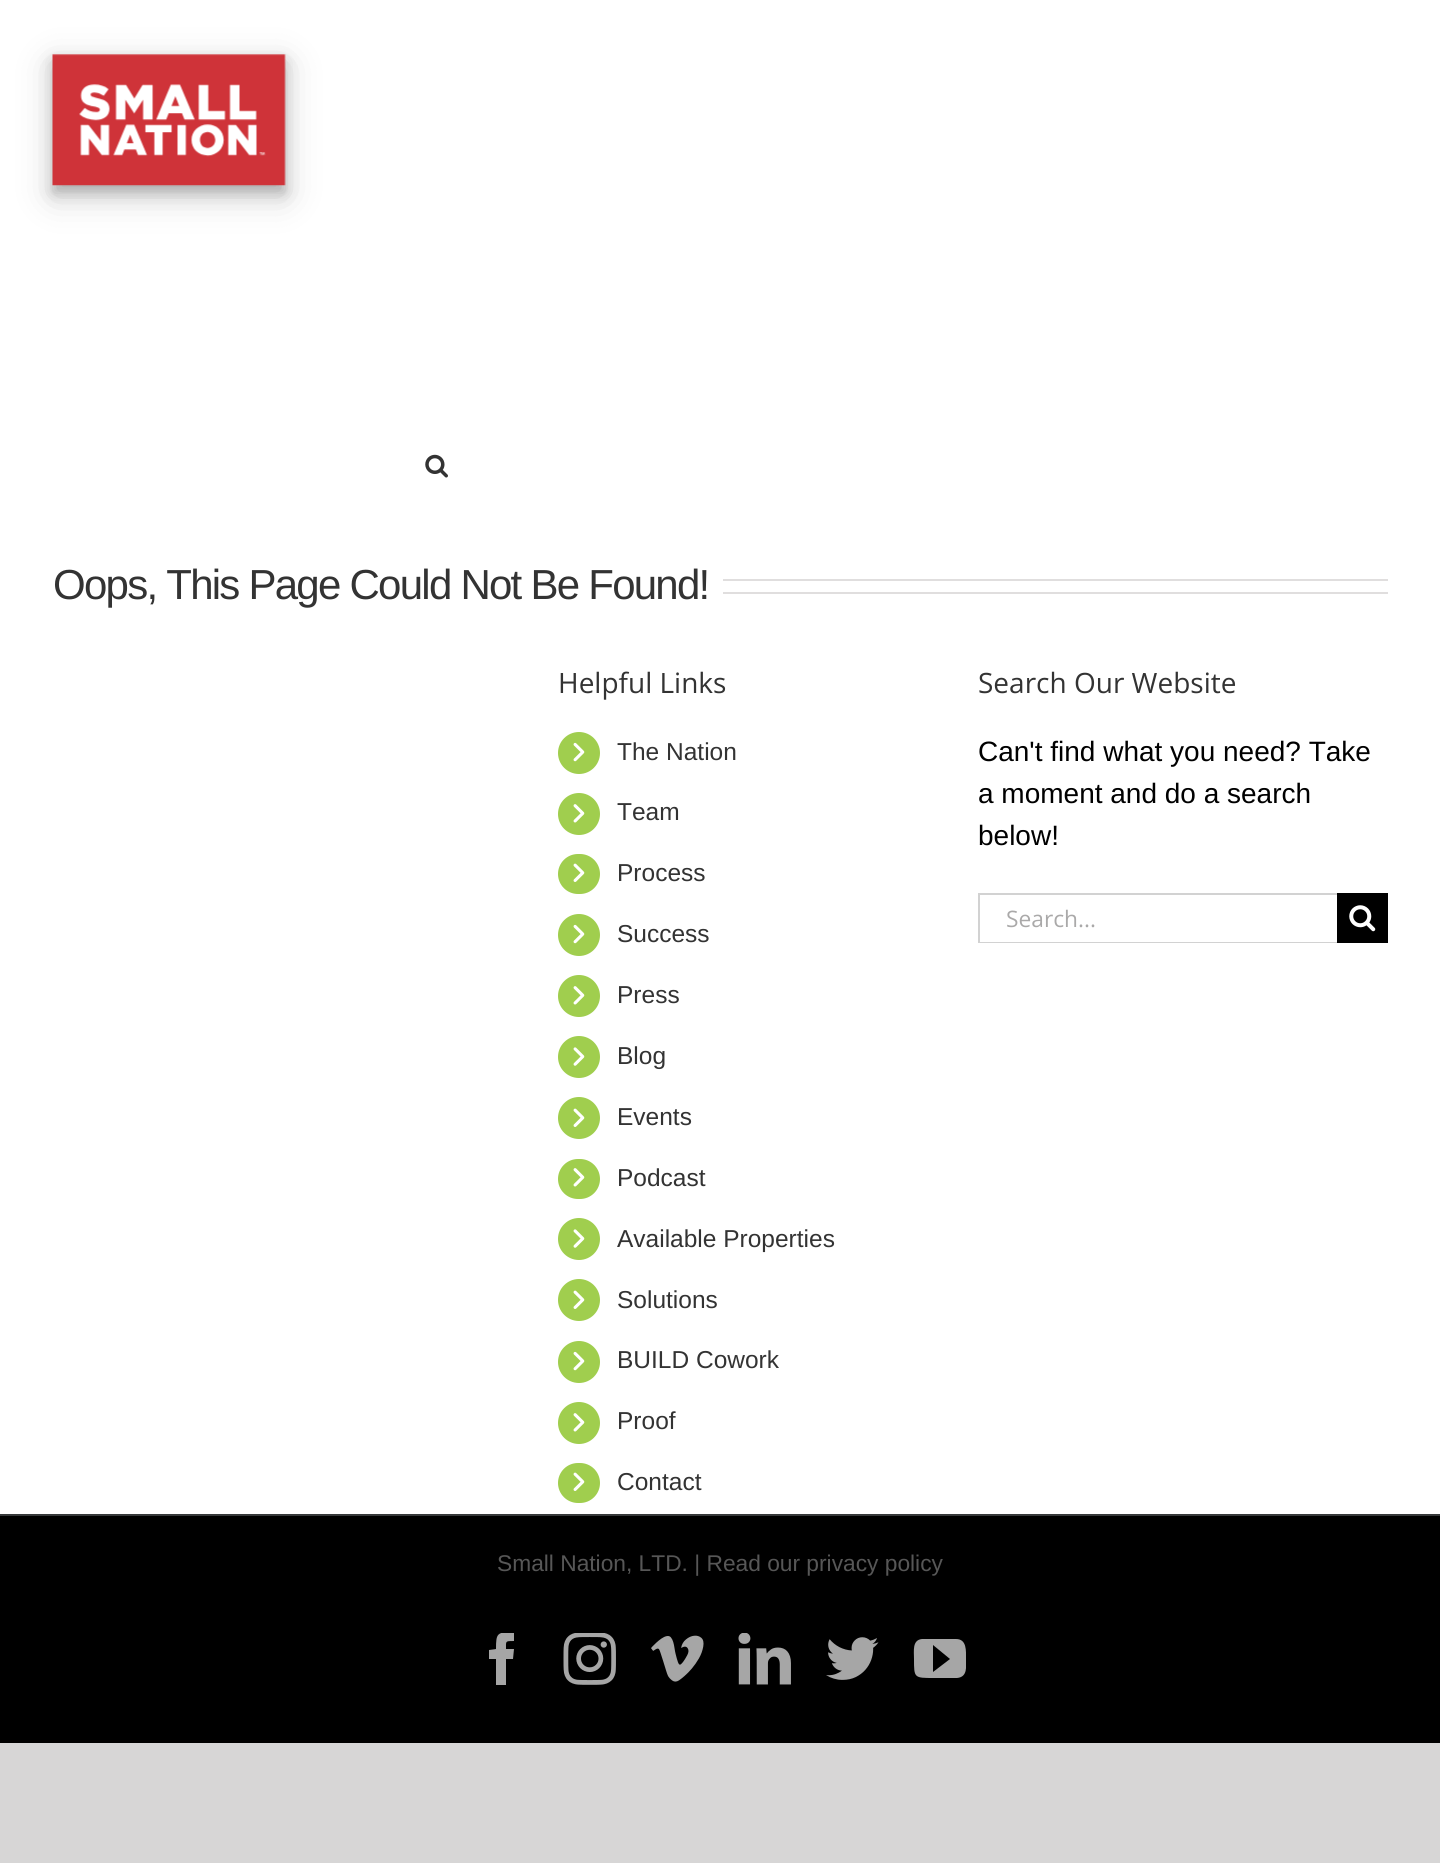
import math
import cairo



def draw_spaced(context, x, y, s, letter, word):
    context.move_to(x, y)
    for ch in s:
        context.show_text(ch)
        context.rel_move_to(letter + word * (ch == ' '), 0)


def rounded_rect(context, x, y, w, h, r):
    context.new_sub_path()
    for i, (u, v) in enumerate([(x + w - r, y + h - r), (x + r, y + h - r), (x + r, y + r), (x + w - r, y + r)]):
        context.arc(u, v, r, i * math.pi / 2, (i + 1) * math.pi / 2)
    context.close_path()


def draw_shadow(context, x, y, w, h, r, blur, alpha):
    context.push_group_with_content(cairo.Content.ALPHA)
    context.set_operator(cairo.Operator.SOURCE)
    for i in range(15, -16, -2):
        e = blur * i / 6
        if min(w, h) + 2 * e > 0:
            context.set_source_rgba(0, 0, 0, alpha * math.erfc((i - 1) / 8.5) / 2)
            rounded_rect(context, x - e, y - e, w + 2 * e, h + 2 * e, max(0, min(r + e + blur * .6, min(w, h) / 2 + e)))
            context.fill()
    context.mask(context.pop_group())


def draw_image(context, path, x, y, w, h):
    context.save()
    context.set_source_surface(cairo.ImageSurface.create_from_png(path), x, y)
    context.rectangle(x, y, w, h)
    context.fill()
    context.restore()


def draw(context):
    context.set_source_rgb(215 / 255, 214 / 255, 214 / 255)
    context.paint()
    context.set_source_rgb(1, 1, 1)
    context.rectangle(0, 0, 1440, 1514)
    context.fill()
    context.set_source_rgb(0, 0, 0)
    draw_shadow(context, 53, 65, 232, 131, 0, 17.5, 0.19)
    draw_shadow(context, 53, 61, 232, 132, 0, 7, 0.2)
    draw_image(context, "images/1.png", 52, 54, 234, 132)
    draw_image(context, "images/2.png", 425, 454, 23, 24)
    context.set_source_rgb(224 / 255, 222 / 255, 222 / 255)
    context.rectangle(723, 579, 665, 2)
    context.fill()
    context.rectangle(723, 592, 665, 2)
    context.fill()
    context.set_source_rgb(160 / 255, 206 / 255, 78 / 255)
    context.arc(579, 753, 21, 0, 2 * math.pi)
    context.fill()
    draw_image(context, "images/3.png", 573, 742, 12, 20)
    context.arc(579, 814, 21, 0, 2 * math.pi)
    context.fill()
    draw_image(context, "images/4.png", 573, 804, 12, 19)
    rounded_rect(context, 558, 854, 42, 40, 20)
    context.fill()
    draw_image(context, "images/5.png", 573, 863, 12, 19)
    context.arc(579, 935, 21, 0, 2 * math.pi)
    context.fill()
    draw_image(context, "images/3.png", 573, 924, 12, 20)
    context.arc(579, 996, 21, 0, 2 * math.pi)
    context.fill()
    draw_image(context, "images/4.png", 573, 986, 12, 19)
    context.arc(579, 1057, 21, 0, 2 * math.pi)
    context.fill()
    draw_image(context, "images/6.png", 573, 1047, 12, 19)
    context.arc(579, 1118, 21, 0, 2 * math.pi)
    context.fill()
    draw_image(context, "images/5.png", 573, 1108, 12, 19)
    rounded_rect(context, 558, 1159, 42, 40, 20)
    context.fill()
    draw_image(context, "images/4.png", 573, 1168, 12, 19)
    context.arc(579, 1239, 21, 0, 2 * math.pi)
    context.fill()
    draw_image(context, "images/6.png", 573, 1229, 12, 19)
    context.arc(579, 1300, 21, 0, 2 * math.pi)
    context.fill()
    draw_image(context, "images/5.png", 573, 1290, 12, 19)
    context.arc(579, 1362, 21, 0, 2 * math.pi)
    context.fill()
    draw_image(context, "images/3.png", 573, 1351, 12, 20)
    context.arc(579, 1423, 21, 0, 2 * math.pi)
    context.fill()
    draw_image(context, "images/4.png", 573, 1413, 12, 19)
    rounded_rect(context, 558, 1463, 42, 40, 20)
    context.fill()
    draw_image(context, "images/5.png", 573, 1472, 12, 19)
    context.set_source_rgb(210 / 255, 210 / 255, 210 / 255)
    context.rectangle(978, 893, 359, 2)
    context.fill()
    context.rectangle(978, 942, 359, 1)
    context.fill()
    context.rectangle(978, 893, 2, 50)
    context.fill()
    context.set_source_rgb(0, 0, 0)
    context.rectangle(1337, 893, 51, 50)
    context.fill()
    draw_image(context, "images/7.png", 1349, 905, 27, 27)
    context.set_source_rgb(54 / 255, 56 / 255, 57 / 255)
    context.rectangle(0, 1514, 1440, 2)
    context.fill()
    context.set_source_rgb(0, 0, 0)
    context.rectangle(0, 1516, 1440, 227)
    context.fill()
    context.save()
    context.rectangle(476, 1633, 490, 70)
    context.clip()
    context.set_source_rgb(166 / 255, 166 / 255, 166 / 255)
    context.new_path()
    context.move_to(506, 1685)
    context.line_to(496, 1685)
    context.line_to(496, 1659)
    context.line_to(489, 1659)
    context.line_to(489, 1650)
    context.line_to(496, 1649)
    context.curve_to(496, 1633, 497, 1632, 514, 1632)
    context.line_to(514, 1641)
    context.curve_to(505, 1641, 506, 1641, 506, 1649)
    context.line_to(514, 1649)
    context.line_to(513, 1659)
    context.line_to(506, 1659)
    context.close_path()
    context.fill()
    context.restore()
    draw_image(context, "images/8.png", 563, 1633, 53, 52)
    draw_image(context, "images/9.png", 651, 1635, 53, 47)
    draw_image(context, "images/10.png", 738, 1633, 53, 52)
    draw_image(context, "images/11.png", 826, 1637, 53, 43)
    context.save()
    context.rectangle(476, 1633, 490, 70)
    context.clip()
    context.set_source_rgb(166 / 255, 166 / 255, 166 / 255)
    context.new_path()
    context.move_to(956, 1639)
    context.line_to(922, 1639)
    context.curve_to(912, 1640, 914, 1651, 914, 1659)
    context.curve_to(914, 1678, 914, 1678, 934, 1678)
    context.line_to(957, 1678)
    context.curve_to(968, 1677, 966, 1666, 966, 1659)
    context.curve_to(966, 1651, 967, 1639, 956, 1639)
    context.close_path()
    context.move_to(933, 1672)
    context.line_to(933, 1645)
    context.line_to(950, 1659)
    context.close_path()
    context.fill()
    context.restore()
    context.select_font_face("Liberation Sans")
    context.set_font_size(42)
    context.set_source_rgb(51 / 255, 51 / 255, 51 / 255)
    draw_spaced(context, 53, 599, "Oops, This Page Could Not Be Found!", -1.75, 0)
    context.select_font_face("Open Sans")
    context.set_font_size(28)
    context.move_to(558, 693)
    context.show_text("Helpful Links")
    context.select_font_face("Liberation Sans")
    context.set_font_size(24.5)
    context.move_to(617, 760)
    context.show_text("The Nation")
    context.move_to(617, 820)
    context.show_text("Team")
    context.move_to(617, 881)
    context.show_text("Process")
    context.move_to(617, 942)
    context.show_text("Success")
    context.move_to(617, 1003)
    context.show_text("Press")
    context.move_to(617, 1064)
    context.show_text("Blog")
    context.move_to(617, 1125)
    context.show_text("Events")
    context.move_to(617, 1186)
    context.show_text("Podcast")
    context.move_to(617, 1247)
    context.show_text("Available Properties")
    context.move_to(617, 1308)
    context.show_text("Solutions")
    context.move_to(617, 1368)
    context.show_text("BUILD Cowork")
    context.move_to(617, 1429)
    context.show_text("Proof")
    context.move_to(617, 1490)
    context.show_text("Contact")
    context.select_font_face("Open Sans")
    context.set_font_size(28)
    context.move_to(978, 693)
    context.show_text("Search Our Website")
    context.select_font_face("Liberation Sans")
    context.set_source_rgb(0, 0, 0)
    context.move_to(978, 761)
    context.show_text("Can't find what you need? Take")
    context.move_to(978, 803)
    context.show_text("a moment and do a search")
    context.move_to(978, 845)
    context.show_text("below!")
    context.select_font_face("Open Sans")
    context.set_font_size(22.75)
    context.set_source_rgb(170 / 255, 169 / 255, 169 / 255)
    context.move_to(1006, 927)
    context.show_text("Search...")
    context.select_font_face("Liberation Sans")
    context.set_source_rgb(87 / 255, 87 / 255, 87 / 255)
    context.move_to(497, 1571)
    context.show_text("Small Nation, LTD. | Read our privacy policy")


surface = cairo.ImageSurface(cairo.Format.RGB24, 1440, 1863)
context = cairo.Context(surface)
options = cairo.FontOptions()
options.set_hint_metrics(cairo.HintMetrics.OFF)
options.set_hint_style(cairo.HintStyle.NONE)
context.set_font_options(options)
context.set_miter_limit(4)
draw(context)
surface.write_to_png("out.png")
